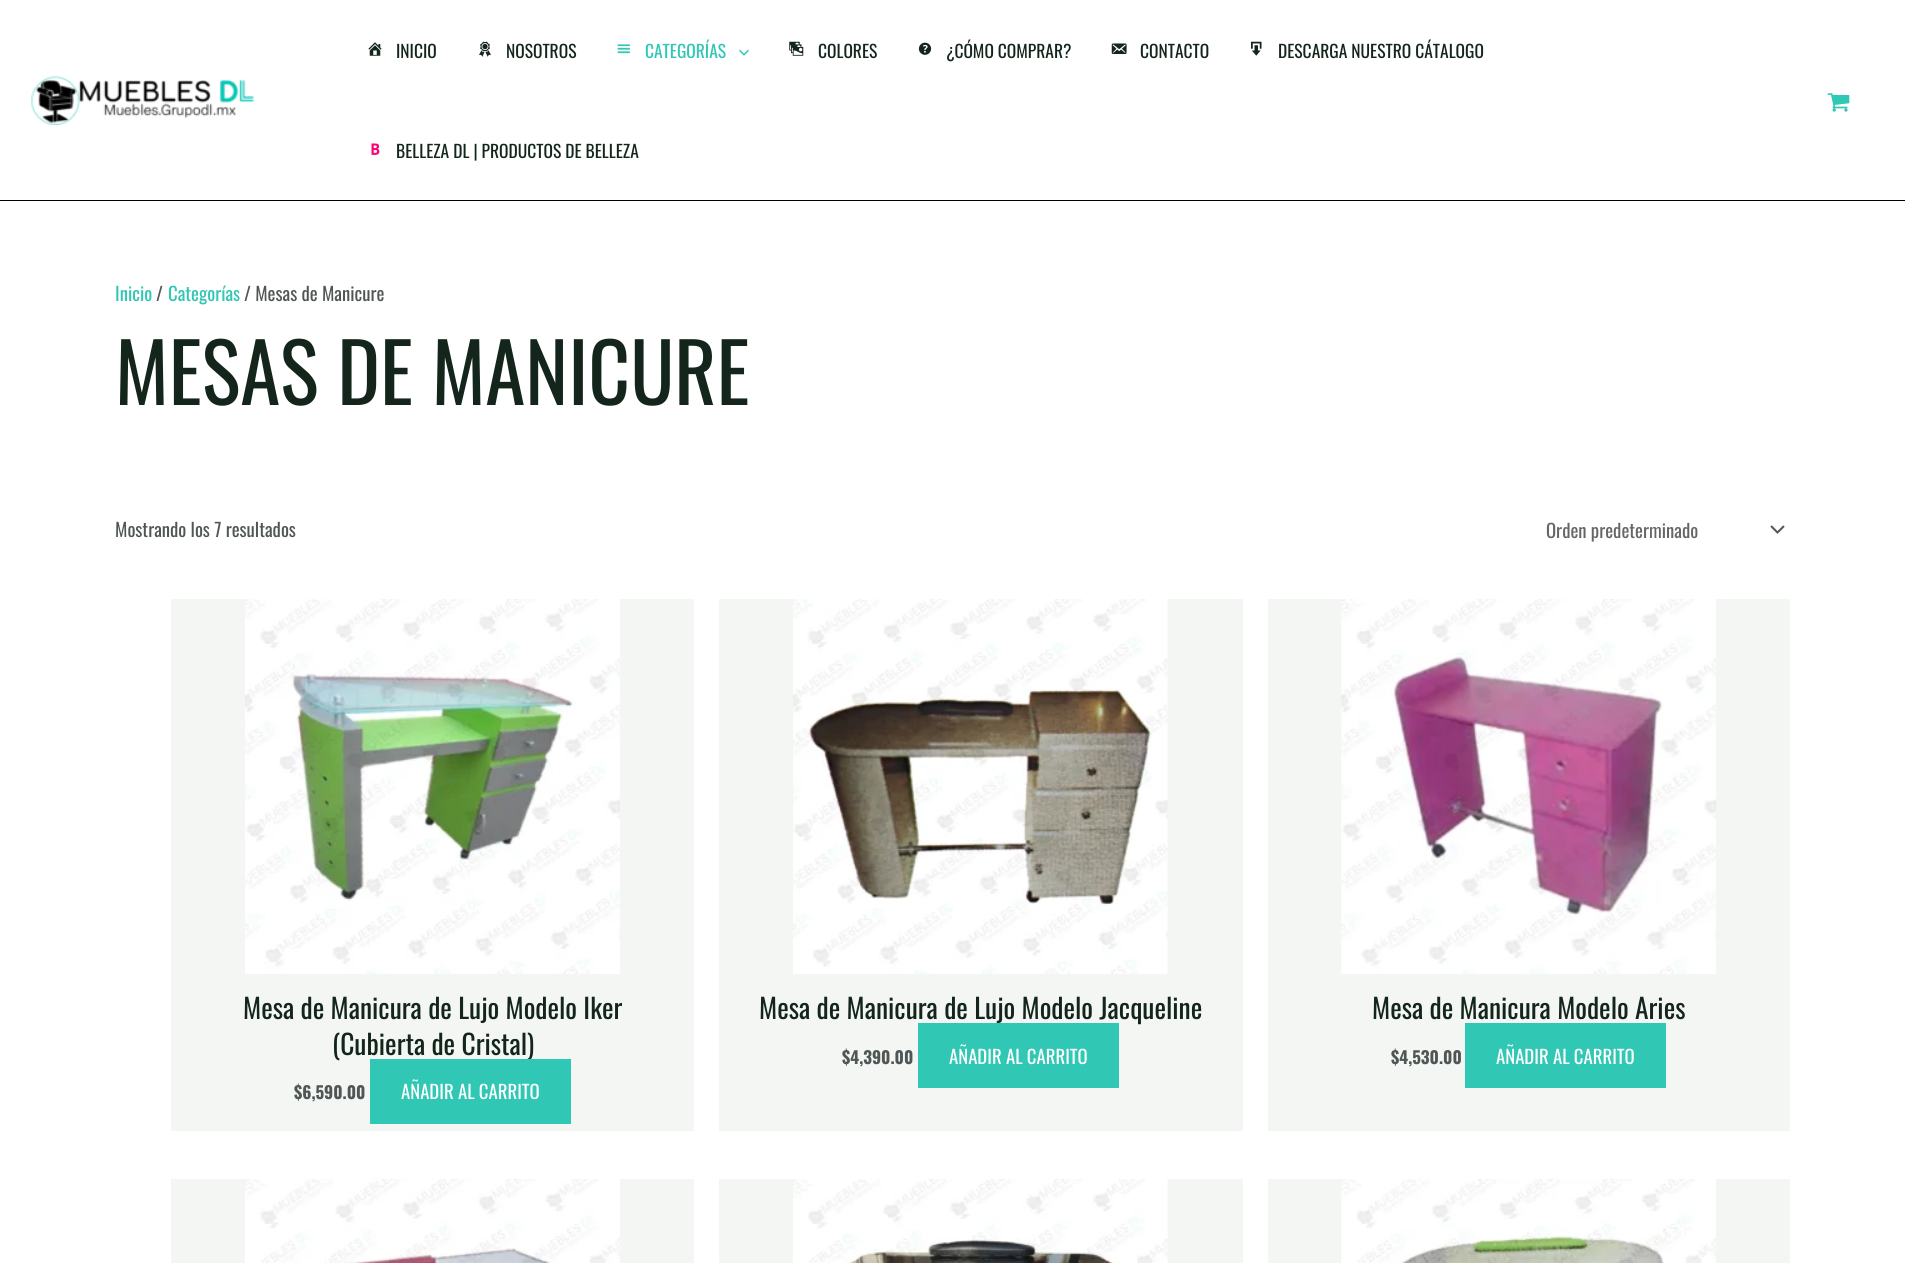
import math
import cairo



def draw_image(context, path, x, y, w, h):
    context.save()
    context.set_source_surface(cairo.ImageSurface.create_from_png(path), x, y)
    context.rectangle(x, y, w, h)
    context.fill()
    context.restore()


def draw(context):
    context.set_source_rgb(1, 1, 1)
    context.paint()
    context.set_source_rgb(0, 0, 0)
    context.rectangle(0, 200, 1905, 1)
    context.fill()
    draw_image(context, "images/1.png", 31, 76, 223, 49)
    draw_image(context, "images/2.png", 368, 42, 14, 14)
    draw_image(context, "images/3.png", 479, 41, 12, 16)
    draw_image(context, "images/4.png", 617, 44, 13, 10)
    draw_image(context, "images/5.png", 739, 49, 10, 7)
    draw_image(context, "images/6.png", 789, 41, 15, 15)
    draw_image(context, "images/7.png", 918, 42, 14, 13)
    draw_image(context, "images/8.png", 1111, 43, 16, 11)
    draw_image(context, "images/9.png", 1251, 41, 11, 15)
    draw_image(context, "images/10.png", 371, 143, 9, 12)
    draw_image(context, "images/11.png", 1827, 93, 23, 19)
    draw_image(context, "images/12.png", 1770, 525, 15, 9)
    context.set_source_rgb(243 / 255, 246 / 255, 243 / 255)
    context.rectangle(171, 599, 523, 532)
    context.fill()
    draw_image(context, "images/13.png", 245, 599, 375, 375)
    context.rectangle(719, 599, 524, 532)
    context.fill()
    draw_image(context, "images/14.png", 793, 599, 375, 375)
    context.rectangle(1268, 599, 522, 532)
    context.fill()
    draw_image(context, "images/15.png", 1341, 599, 375, 375)
    context.set_source_rgb(48 / 255, 199 / 255, 181 / 255)
    context.rectangle(1465, 1023, 201, 65)
    context.fill()
    context.set_source_rgb(243 / 255, 246 / 255, 243 / 255)
    context.rectangle(171, 1179, 523, 84)
    context.fill()
    draw_image(context, "images/16.png", 245, 1179, 375, 84)
    context.rectangle(719, 1179, 524, 84)
    context.fill()
    draw_image(context, "images/17.png", 793, 1179, 375, 84)
    context.rectangle(1268, 1179, 522, 84)
    context.fill()
    draw_image(context, "images/18.png", 1341, 1179, 375, 84)
    context.select_font_face("Oswald")
    context.set_font_size(17.5)
    context.set_source_rgb(20 / 255, 38 / 255, 28 / 255)
    context.move_to(396, 58)
    context.show_text("INICIO")
    context.move_to(506, 58)
    context.show_text("NOSOTROS")
    context.set_source_rgb(48 / 255, 199 / 255, 181 / 255)
    context.move_to(645, 58)
    context.show_text("CATEGORÍAS")
    context.set_source_rgb(20 / 255, 38 / 255, 28 / 255)
    context.move_to(818, 58)
    context.show_text("COLORES")
    context.move_to(946, 58)
    context.show_text("¿CÓMO COMPRAR?")
    context.move_to(1140, 58)
    context.show_text("CONTACTO")
    context.move_to(1278, 58)
    context.show_text("DESCARGA NUESTRO CÁTALOGO")
    context.move_to(396, 158)
    context.show_text("BELLEZA DL | PRODUCTOS DE BELLEZA")
    context.set_font_size(18.75)
    context.set_source_rgb(48 / 255, 199 / 255, 181 / 255)
    context.move_to(115, 301)
    context.show_text("Inicio")
    context.set_source_rgb(79 / 255, 86 / 255, 85 / 255)
    context.move_to(156, 301)
    context.show_text("/")
    context.set_source_rgb(48 / 255, 199 / 255, 181 / 255)
    context.move_to(168, 301)
    context.show_text("Categorías")
    context.set_source_rgb(79 / 255, 86 / 255, 85 / 255)
    context.move_to(244, 301)
    context.show_text("/ Mesas de Manicure")
    context.set_font_size(81.25)
    context.set_source_rgb(20 / 255, 38 / 255, 28 / 255)
    context.move_to(115, 405)
    context.show_text("MESAS DE MANICURE")
    context.set_font_size(18.75)
    context.set_source_rgb(79 / 255, 86 / 255, 85 / 255)
    context.move_to(115, 537)
    context.show_text("Mostrando los 7 resultados")
    context.set_source_rgb(102 / 255, 102 / 255, 102 / 255)
    context.move_to(1546, 538)
    context.show_text("Orden predeterminado")
    context.set_font_size(27.5)
    context.set_source_rgb(20 / 255, 38 / 255, 28 / 255)
    context.move_to(243, 1019)
    context.show_text("Mesa de Manicura de Lujo Modelo Iker")
    context.move_to(332, 1055)
    context.show_text("(Cubierta de Cristal)")
    context.select_font_face("Oswald", cairo.FontSlant.NORMAL, cairo.FontWeight.BOLD)
    context.set_font_size(17)
    context.set_source_rgb(79 / 255, 86 / 255, 85 / 255)
    context.move_to(294, 1099)
    context.show_text("$6,590.00")
    context.set_source_rgb(48 / 255, 199 / 255, 181 / 255)
    context.rectangle(370, 1059, 201, 65)
    context.fill()
    context.select_font_face("Oswald")
    context.set_font_size(18.75)
    context.set_source_rgb(1, 1, 1)
    context.move_to(401, 1099)
    context.show_text("AÑADIR AL CARRITO")
    context.set_font_size(27.5)
    context.set_source_rgb(20 / 255, 38 / 255, 28 / 255)
    context.move_to(759, 1019)
    context.show_text("Mesa de Manicura de Lujo Modelo Jacqueline")
    context.select_font_face("Oswald", cairo.FontSlant.NORMAL, cairo.FontWeight.BOLD)
    context.set_font_size(17)
    context.set_source_rgb(79 / 255, 86 / 255, 85 / 255)
    context.move_to(842, 1064)
    context.show_text("$4,390.00")
    context.set_source_rgb(48 / 255, 199 / 255, 181 / 255)
    context.rectangle(918, 1023, 201, 65)
    context.fill()
    context.select_font_face("Oswald")
    context.set_font_size(18.75)
    context.set_source_rgb(1, 1, 1)
    context.move_to(949, 1064)
    context.show_text("AÑADIR AL CARRITO")
    context.set_font_size(27.5)
    context.set_source_rgb(20 / 255, 38 / 255, 28 / 255)
    context.move_to(1372, 1019)
    context.show_text("Mesa de Manicura Modelo Aries")
    context.select_font_face("Oswald", cairo.FontSlant.NORMAL, cairo.FontWeight.BOLD)
    context.set_font_size(17)
    context.set_source_rgb(79 / 255, 86 / 255, 85 / 255)
    context.move_to(1391, 1064)
    context.show_text("$4,530.00")
    context.select_font_face("Oswald")
    context.set_font_size(18.75)
    context.set_source_rgb(1, 1, 1)
    context.move_to(1496, 1064)
    context.show_text("AÑADIR AL CARRITO")


surface = cairo.ImageSurface(cairo.Format.RGB24, 1905, 1263)
context = cairo.Context(surface)
options = cairo.FontOptions()
options.set_hint_metrics(cairo.HintMetrics.OFF)
options.set_hint_style(cairo.HintStyle.NONE)
context.set_font_options(options)
context.set_miter_limit(4)
draw(context)
surface.write_to_png("out.png")
